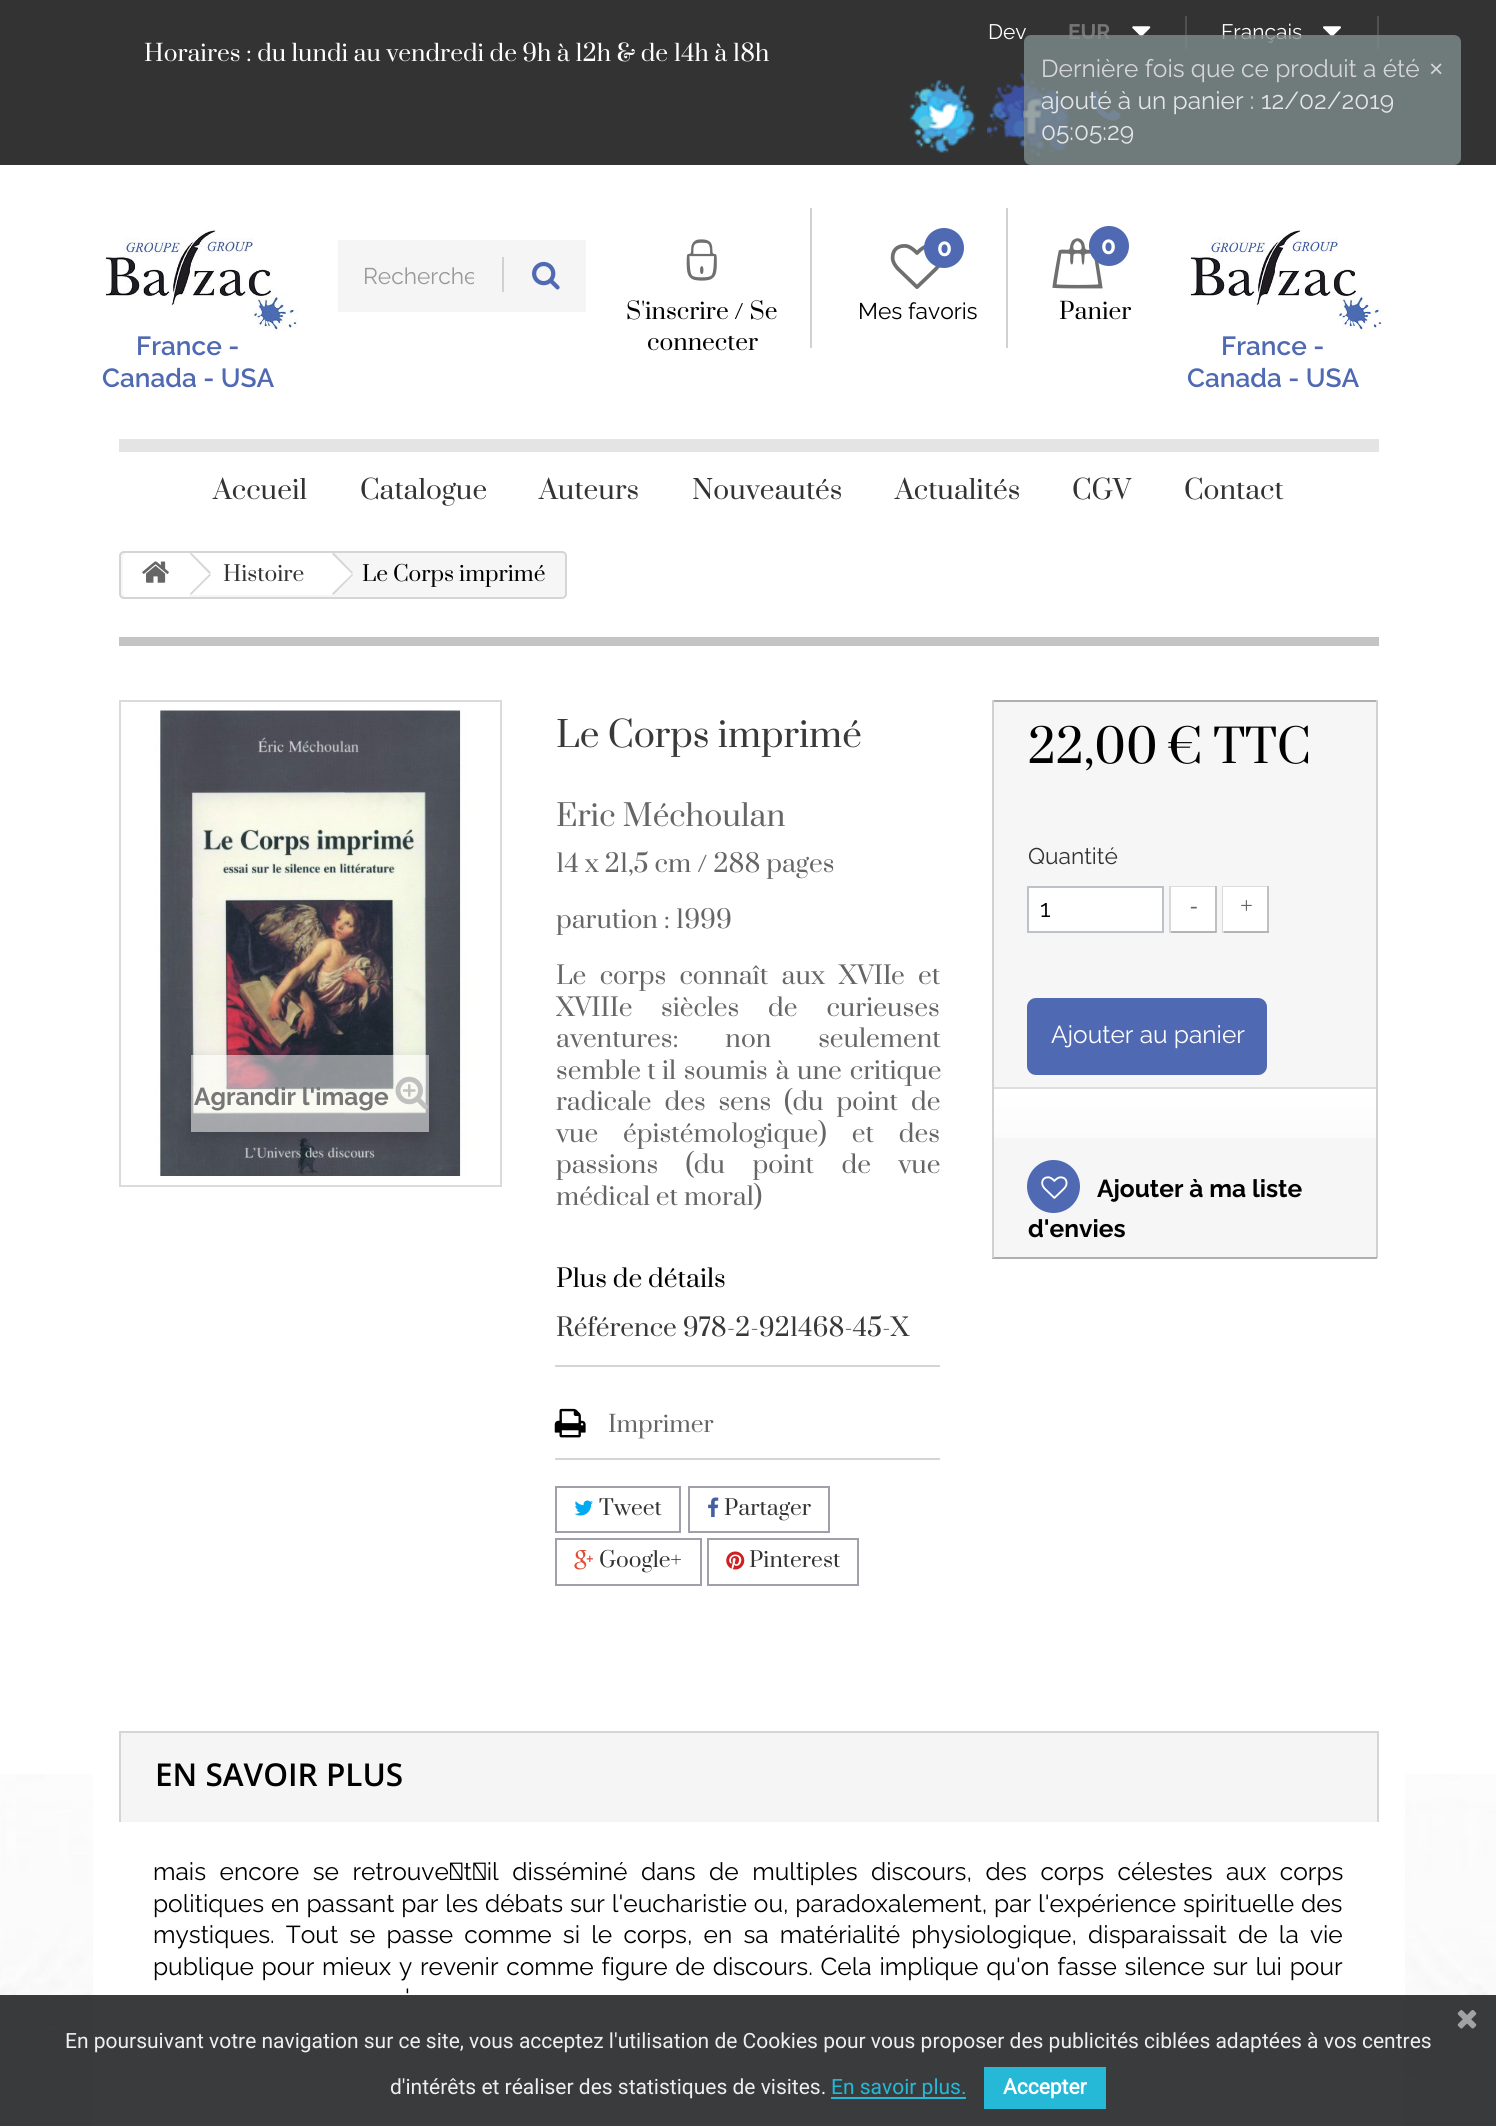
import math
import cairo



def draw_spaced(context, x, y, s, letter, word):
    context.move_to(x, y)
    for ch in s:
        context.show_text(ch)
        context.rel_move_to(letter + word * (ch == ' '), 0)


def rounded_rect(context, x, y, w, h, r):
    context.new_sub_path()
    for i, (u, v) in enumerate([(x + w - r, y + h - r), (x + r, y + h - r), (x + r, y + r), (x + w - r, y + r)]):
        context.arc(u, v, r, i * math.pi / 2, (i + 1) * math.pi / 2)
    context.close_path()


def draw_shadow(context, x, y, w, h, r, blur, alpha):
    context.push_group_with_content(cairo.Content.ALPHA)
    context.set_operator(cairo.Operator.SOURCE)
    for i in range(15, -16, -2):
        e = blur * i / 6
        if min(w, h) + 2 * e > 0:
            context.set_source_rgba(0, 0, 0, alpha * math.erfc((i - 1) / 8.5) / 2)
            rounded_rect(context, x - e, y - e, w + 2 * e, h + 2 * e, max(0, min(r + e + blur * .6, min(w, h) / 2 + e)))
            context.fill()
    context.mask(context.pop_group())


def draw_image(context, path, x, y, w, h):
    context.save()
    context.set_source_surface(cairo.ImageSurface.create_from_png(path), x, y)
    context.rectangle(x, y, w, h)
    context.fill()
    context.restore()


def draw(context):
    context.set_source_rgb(1, 1, 1)
    context.paint()
    context.set_source_rgb(51 / 255, 51 / 255, 51 / 255)
    context.rectangle(0, 0, 1496, 165)
    context.fill()
    context.set_source_rgb(81 / 255, 81 / 255, 81 / 255)
    context.rectangle(1185, 16, 2, 33)
    context.fill()
    draw_image(context, "images/1.png", 1132, 26, 19, 11)
    context.rectangle(1377, 16, 2, 33)
    context.fill()
    draw_image(context, "images/2.png", 1323, 26, 18, 11)
    draw_image(context, "images/3.png", 909, 80, 67, 73)
    draw_image(context, "images/4.png", 987, 73, 83, 83)
    draw_image(context, "images/5.png", 1090, 90, 31, 31)
    context.set_source_rgb(245 / 255, 245 / 255, 245 / 255)
    context.rectangle(338, 240, 248, 72)
    context.fill()
    context.set_source_rgb(209 / 255, 209 / 255, 209 / 255)
    context.rectangle(502, 257, 2, 35)
    context.fill()
    draw_image(context, "images/6.png", 532, 261, 28, 29)
    context.rectangle(810, 208, 2, 140)
    context.fill()
    draw_image(context, "images/7.png", 890, 244, 50, 45)
    context.set_source_rgb(79 / 255, 105 / 255, 179 / 255)
    context.arc(944, 248, 20, 0, 2 * math.pi)
    context.fill()
    draw_image(context, "images/8.png", 686, 239, 31, 42)
    context.set_source_rgb(209 / 255, 209 / 255, 209 / 255)
    context.rectangle(1006, 208, 2, 140)
    context.fill()
    draw_image(context, "images/9.png", 1052, 238, 51, 51)
    context.set_source_rgb(79 / 255, 105 / 255, 179 / 255)
    context.arc(1109, 246, 20, 0, 2 * math.pi)
    context.fill()
    draw_image(context, "images/10.png", 105, 229, 193, 102)
    draw_image(context, "images/11.png", 1190, 230, 193, 101)
    context.set_source_rgb(228 / 255, 228 / 255, 228 / 255)
    context.rectangle(119, 439, 1260, 13)
    context.fill()
    draw_image(context, "images/12.png", 0, 1774, 1496, 352)
    context.set_source_rgb(1, 1, 1)
    context.rectangle(93, 1774, 1312, 352)
    context.fill()
    context.set_source_rgb(246 / 255, 246 / 255, 246 / 255)
    rounded_rect(context, 120, 552, 446, 46, 4)
    context.fill_preserve()
    context.set_source_rgb(214 / 255, 212 / 255, 212 / 255)
    context.stroke()
    context.set_source_rgb(1, 1, 1)
    context.new_path()
    context.move_to(128, 553)
    context.line_to(189, 553)
    context.line_to(189, 597)
    context.line_to(128, 597)
    context.curve_to(125, 597, 123, 595, 123, 592)
    context.line_to(123, 558)
    context.curve_to(123, 555, 125, 553, 128, 553)
    context.close_path()
    context.fill()
    draw_image(context, "images/13.png", 142, 561, 27, 22)
    context.rectangle(189, 553, 142, 42)
    context.fill()
    context.set_source_rgb(214 / 255, 212 / 255, 212 / 255)
    context.new_path()
    context.move_to(191, 552.5)
    context.line_to(211, 572.5)
    context.line_to(209.5, 574)
    context.line_to(190, 554)
    context.close_path()
    context.move_to(209.5, 574)
    context.line_to(211, 575)
    context.line_to(191, 595)
    context.line_to(190, 593.5)
    context.close_path()
    context.fill()
    context.set_source_rgb(1, 1, 1)
    context.new_path()
    context.move_to(335, 554)
    context.line_to(352, 571)
    context.curve_to(353, 573, 353, 575, 352, 576)
    context.line_to(335, 594)
    context.curve_to(333, 595, 331, 595, 330, 594)
    context.line_to(312, 576)
    context.curve_to(311, 575, 311, 573, 312, 571)
    context.line_to(330, 554)
    context.curve_to(331, 553, 333, 553, 335, 554)
    context.close_path()
    context.fill()
    context.set_source_rgb(214 / 255, 212 / 255, 212 / 255)
    context.new_path()
    context.move_to(333.5, 552.5)
    context.line_to(353, 572.5)
    context.line_to(352, 574)
    context.line_to(332, 554)
    context.close_path()
    context.move_to(352, 574)
    context.line_to(353, 575)
    context.line_to(333.5, 595)
    context.line_to(332, 593.5)
    context.close_path()
    context.fill()
    context.set_source_rgb(196 / 255, 196 / 255, 196 / 255)
    context.rectangle(119, 637, 1260, 9)
    context.fill()
    context.rectangle(120, 701, 381, 485)
    context.set_source_rgb(219 / 255, 219 / 255, 219 / 255)
    context.stroke()
    draw_image(context, "images/14.png", 130, 710, 362, 466)
    context.save()
    context.set_fill_rule(cairo.FillRule.EVEN_ODD)
    context.new_path()
    context.move_to(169, 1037)
    context.line_to(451, 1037)
    context.line_to(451, 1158)
    context.line_to(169, 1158)
    context.close_path()
    context.move_to(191, 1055)
    context.line_to(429, 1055)
    context.line_to(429, 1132)
    context.line_to(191, 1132)
    context.close_path()
    context.clip()
    context.set_source_rgb(0, 0, 0)
    draw_shadow(context, 191, 1059, 238, 77, 0, 7, 0.16)
    context.restore()
    context.set_source_rgba(1, 1, 1, 0.5)
    context.rectangle(191, 1055, 238, 77)
    context.fill()
    draw_image(context, "images/15.png", 395, 1076, 33, 34)
    context.set_source_rgb(214 / 255, 212 / 255, 212 / 255)
    context.rectangle(555, 1365, 385, 2)
    context.fill()
    context.rectangle(555, 1458, 385, 2)
    context.fill()
    draw_image(context, "images/16.png", 554, 1408, 32, 30)
    context.rectangle(556, 1487, 124, 45)
    context.set_source_rgb(160 / 255, 160 / 255, 170 / 255)
    context.stroke()
    draw_image(context, "images/17.png", 574, 1500, 19, 16)
    context.rectangle(689, 1487, 140, 45)
    context.stroke()
    draw_image(context, "images/18.png", 708, 1497, 11, 20)
    context.rectangle(556, 1539, 145, 46)
    context.stroke()
    draw_image(context, "images/19.png", 574, 1550, 19, 20)
    context.rectangle(708, 1539, 150, 46)
    context.stroke()
    draw_image(context, "images/20.png", 726, 1551, 19, 19)
    context.set_source_rgb(246 / 255, 246 / 255, 246 / 255)
    context.rectangle(994, 702, 382, 555)
    context.fill()
    context.set_source_rgb(176 / 255, 175 / 255, 175 / 255)
    context.rectangle(992, 700, 385, 2)
    context.fill()
    context.set_source_rgb(210 / 255, 208 / 255, 208 / 255)
    context.rectangle(1376, 700, 2, 558)
    context.fill()
    context.set_source_rgb(176 / 255, 175 / 255, 175 / 255)
    context.rectangle(992, 1257, 385, 2)
    context.fill()
    context.set_source_rgb(210 / 255, 208 / 255, 208 / 255)
    context.rectangle(992, 700, 2, 558)
    context.fill()
    context.set_source_rgb(1, 1, 1)
    context.rectangle(1028, 887, 135, 45)
    context.fill_preserve()
    context.set_source_rgb(189 / 255, 194 / 255, 201 / 255)
    context.stroke()
    context.set_source_rgb(222 / 255, 220 / 255, 220 / 255)
    context.rectangle(1169, 886, 47, 1)
    context.fill()
    context.set_source_rgb(193 / 255, 191 / 255, 191 / 255)
    context.rectangle(1215, 886, 2, 47)
    context.fill()
    context.set_source_rgb(181 / 255, 180 / 255, 180 / 255)
    context.rectangle(1169, 931, 47, 2)
    context.fill()
    context.set_source_rgb(218 / 255, 216 / 255, 216 / 255)
    context.rectangle(1169, 886, 2, 47)
    context.fill()
    context.set_source_rgb(1, 1, 1)
    context.rectangle(1171, 887, 44, 44)
    context.fill()
    context.set_source_rgb(222 / 255, 220 / 255, 220 / 255)
    context.rectangle(1222, 886, 47, 1)
    context.fill()
    context.set_source_rgb(193 / 255, 191 / 255, 191 / 255)
    context.rectangle(1267, 886, 2, 47)
    context.fill()
    context.set_source_rgb(181 / 255, 180 / 255, 180 / 255)
    context.rectangle(1222, 931, 47, 2)
    context.fill()
    context.set_source_rgb(218 / 255, 216 / 255, 216 / 255)
    context.rectangle(1222, 886, 2, 47)
    context.fill()
    context.set_source_rgb(1, 1, 1)
    context.rectangle(1223, 887, 44, 44)
    context.fill()
    context.set_source_rgb(79 / 255, 105 / 255, 179 / 255)
    rounded_rect(context, 1028, 999, 238, 75, 8)
    context.fill_preserve()
    context.stroke()
    gradient = cairo.LinearGradient(1185, 1089, 1185, 1138)
    gradient.add_color_stop_rgba(0, 1, 1, 1, 1)
    gradient.add_color_stop_rgba(1, 251 / 255, 251 / 255, 251 / 255, 1)
    context.set_source(gradient)
    context.rectangle(994, 1089, 382, 49)
    context.fill()
    context.set_source_rgb(223 / 255, 222 / 255, 222 / 255)
    context.rectangle(994, 1087, 382, 2)
    context.fill()
    context.set_source_rgb(79 / 255, 105 / 255, 179 / 255)
    context.arc(1053.5, 1186.5, 26.5, 0, 2 * math.pi)
    context.fill()
    draw_image(context, "images/21.png", 1041, 1176, 27, 23)
    context.set_source_rgb(245 / 255, 245 / 255, 245 / 255)
    context.rectangle(121, 1733, 1256, 89)
    context.fill()
    context.set_source_rgb(214 / 255, 212 / 255, 212 / 255)
    context.rectangle(119, 1731, 1260, 2)
    context.fill()
    context.rectangle(1377, 1731, 2, 91)
    context.fill()
    context.rectangle(119, 1731, 2, 91)
    context.fill()
    context.set_source_rgba(23 / 255, 25 / 255, 28 / 255, 0.85)
    context.rectangle(0, 1995, 1496, 131)
    context.fill()
    draw_image(context, "images/22.png", 1457, 2010, 20, 19)
    context.set_source_rgb(37 / 255, 185 / 255, 215 / 255)
    context.rectangle(831, 2097, 135, 2)
    context.fill()
    context.rectangle(984, 2067, 122, 42)
    context.fill()
    context.select_font_face("Raleway")
    context.set_font_size(21)
    context.set_source_rgb(1, 1, 1)
    context.move_to(988, 39)
    context.show_text("Dev")
    context.select_font_face("Raleway", cairo.FontSlant.NORMAL, cairo.FontWeight.BOLD)
    context.set_source_rgb(119 / 255, 118 / 255, 118 / 255)
    context.move_to(1068, 39)
    context.show_text("EUR")
    context.select_font_face("Raleway")
    context.set_source_rgb(1, 1, 1)
    context.move_to(1221, 39)
    context.show_text("Français")
    context.select_font_face("Prata")
    context.set_font_size(22.75)
    context.move_to(144, 61)
    context.show_text("Horaires : du lundi au vendredi de 9h à 12h & de 14h à 18h")
    context.save()
    context.rectangle(364, 263, 110, 26)
    context.clip()
    context.select_font_face("Raleway")
    context.set_source_rgb(153 / 255, 153 / 255, 153 / 255)
    context.move_to(363, 284)
    context.show_text("Recherche")
    context.restore()
    context.select_font_face("Raleway", cairo.FontSlant.NORMAL, cairo.FontWeight.BOLD)
    context.set_font_size(24.5)
    context.move_to(937, 256)
    context.show_text("0")
    context.select_font_face("Raleway")
    context.set_font_size(22.75)
    context.set_source_rgb(0, 0, 0)
    context.move_to(858, 319)
    context.show_text("Mes favoris")
    context.select_font_face("Prata")
    context.move_to(626, 319)
    context.show_text("S'inscrire / Se")
    context.move_to(647, 350)
    context.show_text("connecter")
    context.select_font_face("Raleway", cairo.FontSlant.NORMAL, cairo.FontWeight.BOLD)
    context.set_font_size(24.5)
    context.set_source_rgb(1, 1, 1)
    context.move_to(1101, 254)
    context.show_text("0")
    context.select_font_face("Prata")
    context.set_font_size(22.75)
    context.set_source_rgb(0, 0, 0)
    context.move_to(1059, 319)
    context.show_text("Panier")
    context.select_font_face("Raleway SemiBold")
    context.set_font_size(26.25)
    context.set_source_rgb(79 / 255, 105 / 255, 179 / 255)
    context.move_to(136, 355)
    context.show_text("France -")
    context.move_to(102, 387)
    context.show_text("Canada - USA")
    context.move_to(1221, 355)
    context.show_text("France -")
    context.move_to(1187, 387)
    context.show_text("Canada - USA")
    context.select_font_face("Prata")
    context.set_source_rgb(51 / 255, 51 / 255, 51 / 255)
    context.move_to(213, 499)
    context.show_text("Accueil")
    context.move_to(360, 499)
    context.show_text("Catalogue")
    context.move_to(539, 499)
    context.show_text("Auteurs")
    context.move_to(692, 499)
    context.show_text("Nouveautés")
    context.move_to(895, 499)
    context.show_text("Actualités")
    context.move_to(1072, 499)
    context.show_text("CGV")
    context.move_to(1184, 499)
    context.show_text("Contact")
    context.set_font_size(21)
    context.move_to(223, 581)
    context.show_text("Histoire")
    context.set_source_rgb(0, 0, 0)
    context.move_to(362, 581)
    context.show_text("Le Corps imprimé")
    context.select_font_face("Raleway", cairo.FontSlant.NORMAL, cairo.FontWeight.BOLD)
    context.set_font_size(24.5)
    context.set_source_rgb(119 / 255, 118 / 255, 118 / 255)
    context.move_to(194, 1105)
    context.show_text("Agrandir l'image")
    context.select_font_face("Prata")
    context.set_font_size(35)
    context.set_source_rgb(58 / 255, 57 / 255, 57 / 255)
    context.move_to(556, 747)
    context.show_text("Le Corps imprimé")
    context.set_font_size(29.75)
    context.set_source_rgb(102 / 255, 102 / 255, 102 / 255)
    context.move_to(556, 826)
    context.show_text("Eric Méchoulan")
    context.set_font_size(24.5)
    context.move_to(556, 872)
    context.show_text("14 x 21,5 cm / 288 pages")
    context.move_to(556, 928)
    context.show_text("parution : 1999")
    draw_spaced(context, 556, 984, "Le corps connaît aux XVII", 0, 7.5)
    context.move_to(891, 984)
    context.show_text("e")
    context.move_to(918, 984)
    context.show_text("et")
    context.move_to(556, 1016)
    context.show_text("XVIIIe")
    draw_spaced(context, 661, 1016, "siècles de curieuses", 0, 23)
    draw_spaced(context, 556, 1047, "aventures: non seulement", 0, 41)
    draw_spaced(context, 556, 1079, "semble‑t‑il soumis à une critique", 0, 2)
    draw_spaced(context, 556, 1110, "radicale des sens (du point de", 0, 7)
    draw_spaced(context, 556, 1142, "vue épistémologique) et des", 0, 19)
    draw_spaced(context, 556, 1173, "passions (du point de vue", 0, 21.5)
    context.move_to(556, 1205)
    context.show_text("médical et moral)")
    context.set_source_rgb(0, 0, 0)
    context.move_to(556, 1287)
    context.show_text("Plus de détails")
    context.set_source_rgb(58 / 255, 57 / 255, 57 / 255)
    context.move_to(556, 1336)
    context.show_text("Référence 978-2-921468-45-X")
    context.set_font_size(22.75)
    context.set_source_rgb(102 / 255, 102 / 255, 102 / 255)
    context.move_to(608, 1432)
    context.show_text("Imprimer")
    context.set_font_size(21)
    context.set_source_rgb(51 / 255, 51 / 255, 51 / 255)
    context.move_to(599, 1515)
    context.show_text("Tweet")
    context.move_to(724, 1515)
    context.show_text("Partager")
    context.move_to(599, 1567)
    context.show_text("Google+")
    context.move_to(749, 1567)
    context.show_text("Pinterest")
    context.set_font_size(45.5)
    context.set_source_rgb(0, 0, 0)
    context.move_to(1028, 763)
    context.show_text("22,00 € TTC")
    context.select_font_face("Raleway")
    context.set_font_size(22.75)
    context.set_source_rgb(51 / 255, 51 / 255, 51 / 255)
    context.move_to(1028, 864)
    context.show_text("Quantité")
    context.set_font_size(24.5)
    context.set_source_rgb(0, 0, 0)
    context.move_to(1040, 917)
    context.show_text("1")
    context.select_font_face("Liberation Serif")
    context.set_font_size(22.75)
    context.set_source_rgb(102 / 255, 102 / 255, 102 / 255)
    context.move_to(1190, 913)
    context.show_text("-")
    context.move_to(1240, 913)
    context.show_text("+")
    context.select_font_face("Raleway")
    context.set_font_size(24.5)
    context.set_source_rgb(1, 1, 1)
    context.move_to(1051, 1043)
    context.show_text("Ajouter au panier")
    context.select_font_face("Raleway", cairo.FontSlant.NORMAL, cairo.FontWeight.BOLD)
    context.set_source_rgb(0, 0, 0)
    context.move_to(1097, 1197)
    context.show_text("Ajouter à ma liste")
    context.move_to(1028, 1237)
    context.show_text("d'envies")
    context.select_font_face("Open Sans SemiBold")
    context.set_font_size(31.5)
    context.move_to(155, 1786)
    context.show_text("EN SAVOIR PLUS")
    context.select_font_face("Raleway")
    context.set_font_size(24.5)
    draw_spaced(context, 153, 1880, "mais encore se retrouve‑t‑il disséminé dans de multiples discours, des corps célestes aux corps", 0, 7.25)
    draw_spaced(context, 153, 1912, "politiques en passant par les débats sur l'eucharistie ou, paradoxalement, par l'expérience spirituelle des", 0, 0.6)
    draw_spaced(context, 153, 1943, "mystiques. Tout se passe comme si le corps, en sa matérialité physiologique, disparaissait de la vie", 0, 4.9)
    draw_spaced(context, 153, 1975, "publique pour", 0, 1.5)
    draw_spaced(context, 322, 1975, "mieux y revenir comme figure de discours. Cela implique qu'on fasse silence sur lui pour", 0, 1.5)
    draw_spaced(context, 405, 2006, "'", 0, 2)
    context.set_source_rgba(127 / 255, 140 / 255, 141 / 255, 0.8)
    rounded_rect(context, 1024, 35, 437, 130, 7)
    context.fill()
    context.set_source_rgb(214 / 255, 214 / 255, 214 / 255)
    context.move_to(1041, 77)
    context.show_text("Dernière fois que ce produit a été")
    context.set_source_rgb(227 / 255, 229 / 255, 230 / 255)
    context.move_to(1041, 109)
    context.show_text("ajouté à un panier :")
    context.move_to(1261, 109)
    context.show_text("12/02/2019")
    context.move_to(1041, 140)
    context.show_text("05:05:29")
    context.select_font_face("Liberation Sans")
    context.set_source_rgb(214 / 255, 214 / 255, 214 / 255)
    context.move_to(1429, 77)
    context.show_text("×")
    context.select_font_face("Roboto")
    context.set_font_size(21)
    context.set_source_rgb(239 / 255, 239 / 255, 239 / 255)
    context.move_to(65, 2048)
    context.show_text("En poursuivant votre navigation sur ce site, vous acceptez l'utilisation de Cookies pour vous proposer des publicités ciblées adaptées à vos centres")
    context.move_to(390, 2094)
    context.show_text("d'intérêts et réaliser des statistiques de visites.")
    context.set_source_rgb(37 / 255, 185 / 255, 215 / 255)
    context.move_to(831, 2094)
    context.show_text("En savoir plus.")
    context.select_font_face("Roboto", cairo.FontSlant.NORMAL, cairo.FontWeight.BOLD)
    context.set_source_rgb(1, 1, 1)
    context.move_to(1003, 2094)
    context.show_text("Accepter")


surface = cairo.ImageSurface(cairo.Format.RGB24, 1496, 2126)
context = cairo.Context(surface)
options = cairo.FontOptions()
options.set_hint_metrics(cairo.HintMetrics.OFF)
options.set_hint_style(cairo.HintStyle.NONE)
context.set_font_options(options)
context.set_miter_limit(4)
draw(context)
surface.write_to_png("out.png")
